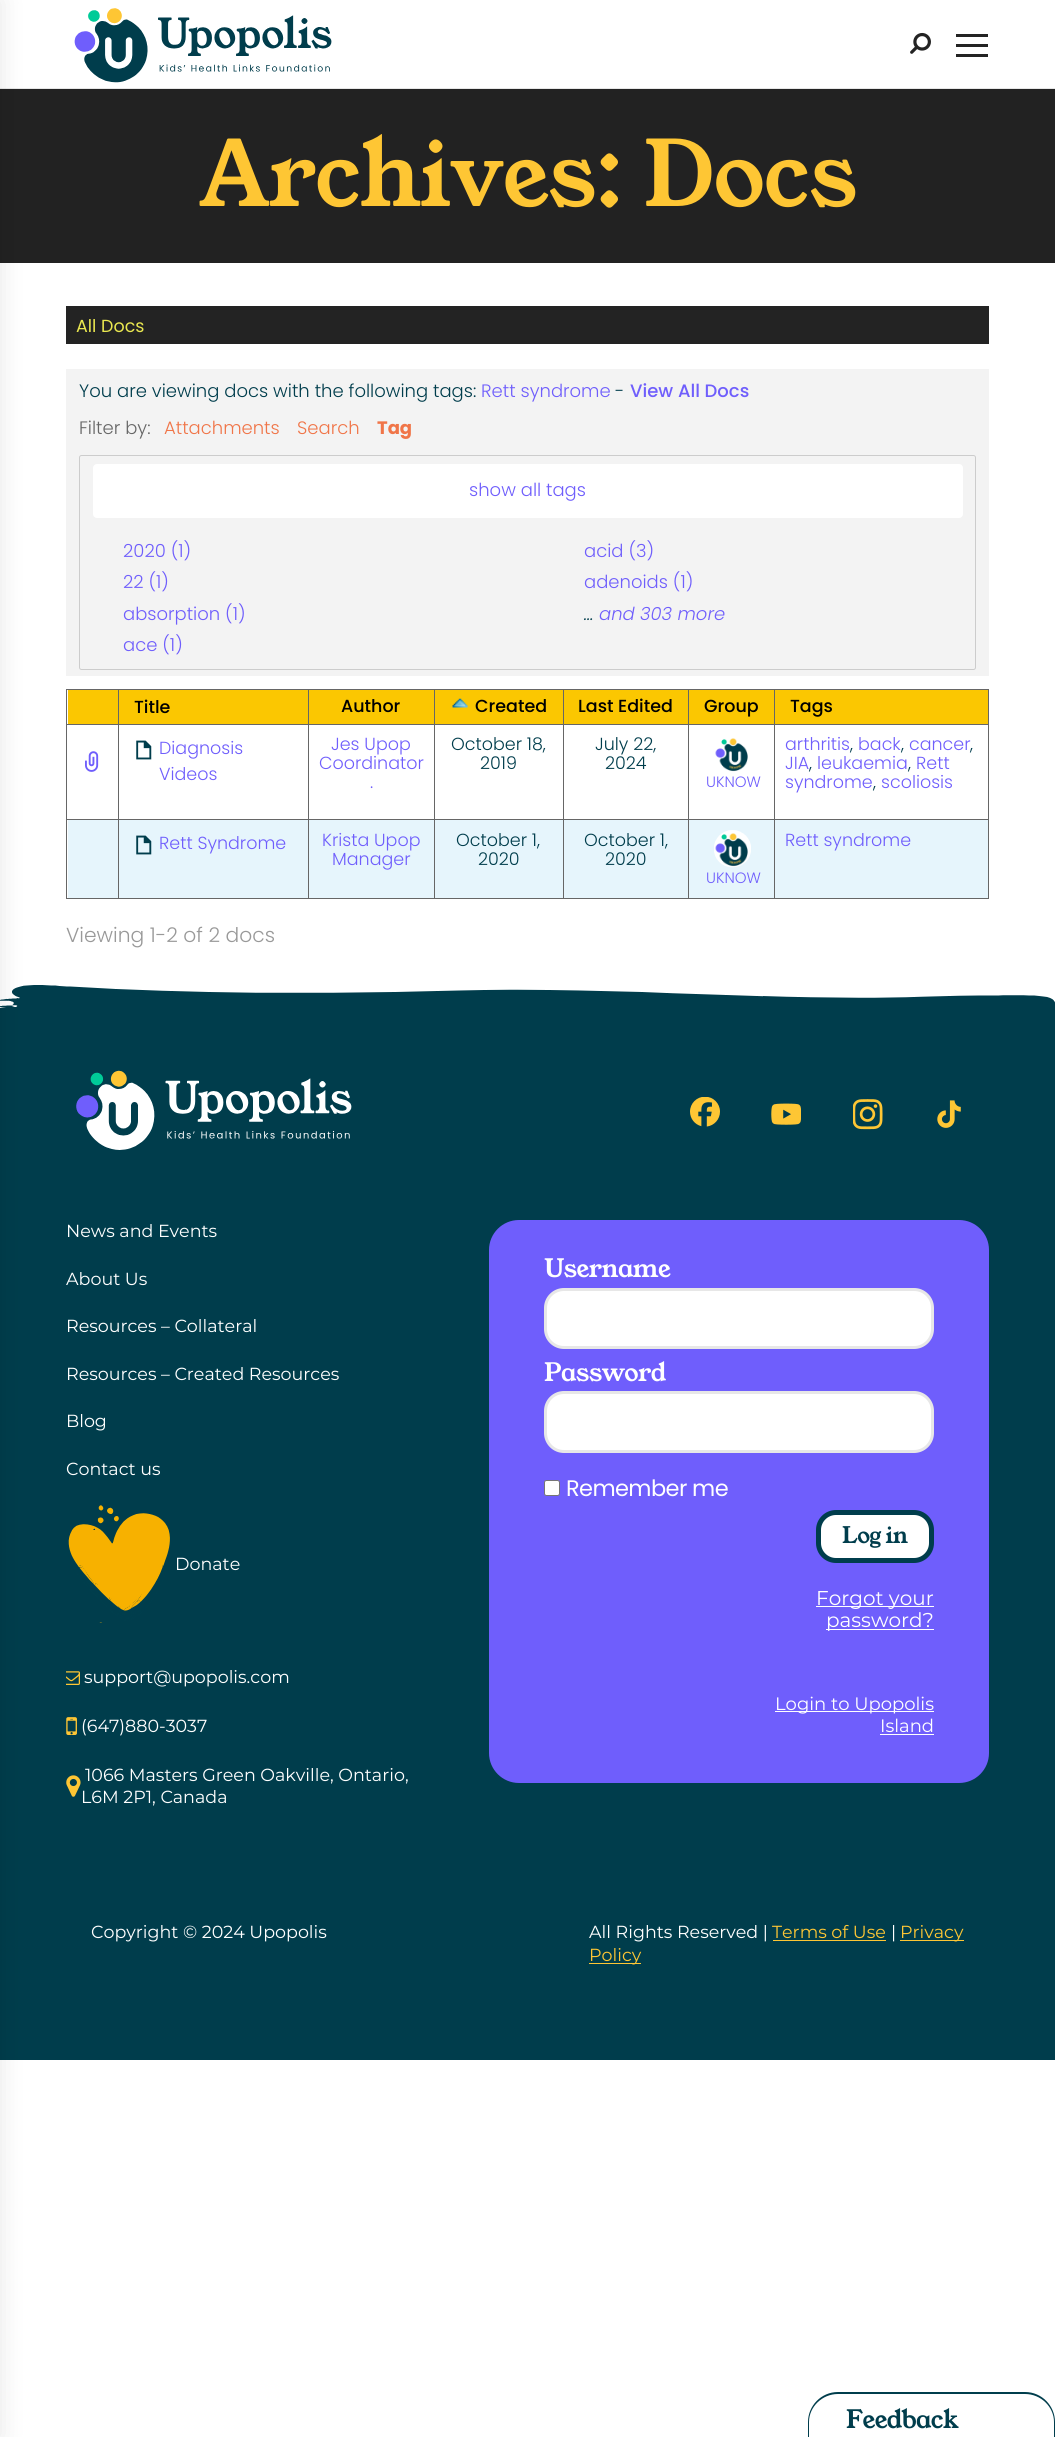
import math
import cairo



def draw_spaced(context, x, y, s, letter, word):
    context.move_to(x, y)
    for ch in s:
        context.show_text(ch)
        context.rel_move_to(letter + word * (ch == ' '), 0)


def rounded_rect(context, x, y, w, h, r):
    context.new_sub_path()
    for i, (u, v) in enumerate([(x + w - r, y + h - r), (x + r, y + h - r), (x + r, y + r), (x + w - r, y + r)]):
        context.arc(u, v, r, i * math.pi / 2, (i + 1) * math.pi / 2)
    context.close_path()


def draw_shadow(context, x, y, w, h, r, blur, alpha):
    context.push_group_with_content(cairo.Content.ALPHA)
    context.set_operator(cairo.Operator.SOURCE)
    for i in range(15, -16, -2):
        e = blur * i / 6
        if min(w, h) + 2 * e > 0:
            context.set_source_rgba(0, 0, 0, alpha * math.erfc((i - 1) / 8.5) / 2)
            rounded_rect(context, x - e, y - e, w + 2 * e, h + 2 * e, max(0, min(r + e + blur * .6, min(w, h) / 2 + e)))
            context.fill()
    context.mask(context.pop_group())


def draw_image(context, path, x, y, w, h):
    context.save()
    context.set_source_surface(cairo.ImageSurface.create_from_png(path), x, y)
    context.rectangle(x, y, w, h)
    context.fill()
    context.restore()


def draw(context):
    context.set_source_rgb(1, 1, 1)
    context.paint()
    context.set_source_rgb(230 / 255, 230 / 255, 230 / 255)
    context.rectangle(0, 88, 1055, 1)
    context.fill()
    context.set_source_rgb(34 / 255, 34 / 255, 34 / 255)
    context.rectangle(0, 89, 1055, 174)
    context.fill()
    context.set_source_rgb(0, 61 / 255, 76 / 255)
    context.rectangle(0, 1008, 1055, 1052)
    context.fill()
    draw_image(context, "images/9.png", 0, 985, 1055, 23)
    context.set_source_rgb(0, 0, 0)
    draw_shadow(context, -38, 0, 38, 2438, 0, 12.5, 0.1)
    draw_image(context, "images/1.png", 74, 8, 258, 75)
    draw_image(context, "images/2.png", 910, 32, 21, 22)
    context.set_source_rgb(35 / 255, 35 / 255, 35 / 255)
    context.rectangle(956, 44, 32, 3)
    context.fill()
    context.rectangle(956, 34, 32, 3)
    context.fill()
    context.rectangle(956, 54, 32, 3)
    context.fill()
    context.rectangle(66, 306, 923, 38)
    context.fill()
    context.set_source_rgb(243 / 255, 243 / 255, 243 / 255)
    context.rectangle(66, 369, 923, 307)
    context.fill()
    rounded_rect(context, 79.5, 455.5, 896, 214, 2)
    context.set_source_rgb(204 / 255, 204 / 255, 204 / 255)
    context.set_line_width(1)
    context.stroke()
    context.set_source_rgb(1, 1, 1)
    rounded_rect(context, 93, 464, 870, 54, 4)
    context.fill()
    context.set_source_rgb(251 / 255, 199 / 255, 1 / 255)
    context.rectangle(68, 690, 50, 34)
    context.fill()
    context.set_source_rgb(102 / 255, 102 / 255, 102 / 255)
    context.rectangle(774, 689, 215, 1)
    context.fill()
    context.rectangle(774, 724, 215, 1)
    context.fill()
    context.rectangle(774, 819, 215, 1)
    context.fill()
    context.set_source_rgb(230 / 255, 245 / 255, 252 / 255)
    context.rectangle(68, 820, 920, 78)
    context.fill()
    context.set_source_rgb(102 / 255, 102 / 255, 102 / 255)
    context.rectangle(988, 819, 1, 80)
    context.fill()
    context.rectangle(774, 898, 215, 1)
    context.fill()
    context.rectangle(774, 819, 1, 80)
    context.fill()
    context.rectangle(688, 819, 87, 1)
    context.fill()
    context.rectangle(774, 724, 1, 96)
    context.fill()
    context.rectangle(688, 724, 87, 1)
    context.fill()
    context.rectangle(774, 689, 1, 36)
    context.fill()
    context.rectangle(688, 689, 87, 1)
    context.fill()
    context.rectangle(688, 898, 87, 1)
    context.fill()
    context.rectangle(688, 819, 1, 80)
    context.fill()
    context.rectangle(563, 819, 126, 1)
    context.fill()
    context.rectangle(688, 724, 1, 96)
    context.fill()
    context.rectangle(563, 724, 126, 1)
    context.fill()
    context.rectangle(688, 689, 1, 36)
    context.fill()
    context.rectangle(563, 689, 126, 1)
    context.fill()
    context.rectangle(563, 898, 126, 1)
    context.fill()
    context.rectangle(563, 819, 1, 80)
    context.fill()
    context.rectangle(434, 819, 130, 1)
    context.fill()
    context.rectangle(563, 724, 1, 96)
    context.fill()
    context.rectangle(434, 724, 130, 1)
    context.fill()
    context.rectangle(563, 689, 1, 36)
    context.fill()
    context.rectangle(434, 689, 130, 1)
    context.fill()
    context.rectangle(434, 898, 130, 1)
    context.fill()
    context.rectangle(434, 819, 1, 80)
    context.fill()
    context.rectangle(308, 819, 127, 1)
    context.fill()
    context.rectangle(434, 724, 1, 96)
    context.fill()
    context.rectangle(308, 724, 127, 1)
    context.fill()
    context.rectangle(434, 689, 1, 36)
    context.fill()
    context.rectangle(308, 689, 127, 1)
    context.fill()
    context.rectangle(308, 898, 127, 1)
    context.fill()
    context.rectangle(308, 819, 1, 80)
    context.fill()
    context.rectangle(118, 819, 191, 1)
    context.fill()
    context.rectangle(308, 724, 1, 96)
    context.fill()
    context.rectangle(118, 724, 191, 1)
    context.fill()
    context.rectangle(308, 689, 1, 36)
    context.fill()
    context.rectangle(118, 689, 191, 1)
    context.fill()
    context.rectangle(118, 898, 191, 1)
    context.fill()
    context.rectangle(118, 819, 1, 80)
    context.fill()
    context.rectangle(66, 819, 53, 1)
    context.fill()
    context.rectangle(118, 724, 1, 96)
    context.fill()
    context.rectangle(66, 724, 53, 1)
    context.fill()
    context.rectangle(118, 689, 1, 36)
    context.fill()
    context.rectangle(66, 689, 53, 1)
    context.fill()
    context.rectangle(66, 898, 53, 1)
    context.fill()
    context.rectangle(66, 819, 1, 80)
    context.fill()
    context.rectangle(66, 724, 1, 96)
    context.fill()
    context.rectangle(66, 689, 1, 36)
    context.fill()
    context.set_source_rgb(251 / 255, 199 / 255, 1 / 255)
    context.rectangle(119, 690, 189, 34)
    context.fill()
    context.rectangle(309, 690, 125, 34)
    context.fill()
    context.rectangle(435, 690, 128, 34)
    context.fill()
    draw_image(context, "images/3.png", 452, 698, 16, 10)
    context.rectangle(564, 690, 124, 34)
    context.fill()
    context.rectangle(689, 690, 85, 34)
    context.fill()
    context.rectangle(775, 690, 213, 34)
    context.fill()
    context.set_source_rgb(102 / 255, 102 / 255, 102 / 255)
    context.rectangle(988, 724, 1, 96)
    context.fill()
    context.rectangle(988, 689, 1, 36)
    context.fill()
    draw_image(context, "images/4.png", 85, 751, 14, 21)
    draw_image(context, "images/5.png", 136, 740, 16, 20)
    draw_image(context, "images/6.png", 715, 738, 33, 34)
    draw_image(context, "images/7.png", 136, 835, 16, 20)
    draw_image(context, "images/8.png", 714, 830, 37, 38)
    draw_image(context, "images/10.png", 76, 1070, 276, 80)
    draw_image(context, "images/11.png", 690, 1097, 30, 30)
    draw_image(context, "images/12.png", 771, 1103, 30, 22)
    draw_image(context, "images/13.png", 853, 1099, 30, 31)
    draw_image(context, "images/14.png", 937, 1100, 24, 28)
    draw_image(context, "images/15.png", 68, 1505, 102, 118)
    draw_image(context, "images/16.png", 66, 1671, 14, 14)
    draw_image(context, "images/17.png", 66, 1717, 11, 18)
    draw_image(context, "images/18.png", 66, 1775, 15, 22)
    context.set_source_rgb(111 / 255, 94 / 255, 252 / 255)
    rounded_rect(context, 489, 1220, 500, 563, 30)
    context.fill()
    context.set_source_rgb(1, 1, 1)
    rounded_rect(context, 545.5, 1289.5, 387, 58, 18.5)
    context.fill_preserve()
    context.set_source_rgb(231 / 255, 231 / 255, 231 / 255)
    context.set_line_width(3)
    context.stroke()
    context.set_source_rgb(1, 1, 1)
    rounded_rect(context, 545.5, 1392.5, 387, 59, 18.5)
    context.fill_preserve()
    context.set_source_rgb(231 / 255, 231 / 255, 231 / 255)
    context.stroke()
    context.set_source_rgb(1, 1, 1)
    rounded_rect(context, 544.5, 1480.5, 15, 15, 2)
    context.fill_preserve()
    context.set_source_rgb(118 / 255, 118 / 255, 118 / 255)
    context.set_line_width(1)
    context.stroke()
    context.set_source_rgb(1, 1, 1)
    rounded_rect(context, 818.5, 1512.5, 113, 48, 17.5)
    context.fill_preserve()
    context.set_source_rgb(0, 61 / 255, 76 / 255)
    context.set_line_width(5)
    context.stroke()
    context.set_source_rgb(1, 1, 1)
    context.rectangle(816, 1606, 118, 1)
    context.fill()
    context.rectangle(826, 1629, 108, 1)
    context.fill()
    context.rectangle(775, 1711, 159, 1)
    context.fill()
    context.rectangle(880, 1734, 54, 1)
    context.fill()
    context.set_source_rgb(254 / 255, 198 / 255, 52 / 255)
    context.rectangle(773, 1940, 113, 1)
    context.fill()
    context.rectangle(900, 1940, 64, 1)
    context.fill()
    context.rectangle(589, 1963, 52, 1)
    context.fill()
    context.set_source_rgb(0, 61 / 255, 76 / 255)
    context.set_fill_rule(cairo.FillRule.EVEN_ODD)
    context.new_path()
    context.move_to(838, 2392)
    context.line_to(1025, 2392)
    context.curve_to(1042, 2392, 1055, 2406, 1055, 2422)
    context.line_to(1055, 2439)
    context.line_to(808, 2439)
    context.line_to(808, 2422)
    context.curve_to(808, 2406, 821, 2392, 838, 2392)
    context.close_path()
    context.move_to(838, 2394)
    context.line_to(1025, 2394)
    context.curve_to(1041, 2394, 1054, 2407, 1054, 2422)
    context.line_to(1054, 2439)
    context.line_to(809, 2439)
    context.line_to(809, 2422)
    context.curve_to(809, 2407, 822, 2394, 838, 2394)
    context.close_path()
    context.fill()
    context.select_font_face("Young Serif")
    context.set_font_size(90)
    context.set_source_rgb(254 / 255, 198 / 255, 52 / 255)
    draw_spaced(context, 199, 206, "Archives: Docs", -1.25, 0)
    context.select_font_face("Poppins")
    context.set_font_size(17.5)
    context.set_source_rgb(233 / 255, 231 / 255, 80 / 255)
    context.move_to(76, 332)
    context.show_text("All Docs")
    context.select_font_face("Poppins Light")
    context.set_font_size(18)
    context.set_source_rgb(0, 61 / 255, 76 / 255)
    context.move_to(79, 397)
    context.show_text("You are viewing docs with the following tags:")
    context.set_source_rgb(111 / 255, 94 / 255, 252 / 255)
    context.move_to(481, 397)
    context.show_text("Rett syndrome")
    context.set_source_rgb(0, 61 / 255, 76 / 255)
    context.move_to(615, 397)
    context.show_text("-")
    context.select_font_face("Poppins Medium")
    context.set_source_rgb(111 / 255, 94 / 255, 252 / 255)
    context.move_to(630, 397)
    context.show_text("View All Docs")
    context.select_font_face("Poppins Light")
    context.set_source_rgb(102 / 255, 102 / 255, 102 / 255)
    context.move_to(79, 434)
    context.show_text("Filter by:")
    context.set_source_rgb(240 / 255, 117 / 255, 72 / 255)
    context.move_to(164, 434)
    context.show_text("Attachments")
    context.move_to(297, 434)
    context.show_text("Search")
    context.select_font_face("Poppins", cairo.FontSlant.NORMAL, cairo.FontWeight.BOLD)
    context.move_to(377, 434)
    context.show_text("Tag")
    context.select_font_face("Poppins Light")
    context.set_source_rgb(111 / 255, 94 / 255, 252 / 255)
    context.move_to(469, 496)
    context.show_text("show all tags")
    context.move_to(123, 557)
    context.show_text("2020 (1)")
    context.move_to(584, 557)
    context.show_text("acid (3)")
    context.move_to(123, 588)
    context.show_text("22 (1)")
    context.move_to(584, 588)
    context.show_text("adenoids (1)")
    context.move_to(123, 620)
    context.show_text("absorption (1)")
    context.select_font_face("Poppins Light", cairo.FontSlant.ITALIC)
    context.set_source_rgb(0, 61 / 255, 76 / 255)
    context.move_to(584, 620)
    context.show_text("…")
    context.set_source_rgb(111 / 255, 94 / 255, 252 / 255)
    context.move_to(599, 620)
    context.show_text("and 303 more")
    context.select_font_face("Poppins Light")
    context.move_to(123, 651)
    context.show_text("ace (1)")
    context.select_font_face("Poppins Medium")
    context.set_font_size(17.5)
    context.set_source_rgb(0, 0, 0)
    context.move_to(134, 713)
    context.show_text("Title")
    context.move_to(341, 712)
    context.show_text("Author")
    context.move_to(475, 712)
    context.show_text("Created")
    context.move_to(578, 712)
    context.show_text("Last Edited")
    context.move_to(704, 712)
    context.show_text("Group")
    context.move_to(790, 712)
    context.show_text("Tags")
    context.select_font_face("Poppins Light")
    context.set_source_rgb(111 / 255, 94 / 255, 252 / 255)
    context.move_to(159, 754)
    context.show_text("Diagnosis")
    context.move_to(159, 780)
    context.show_text("Videos")
    context.move_to(331, 750)
    context.show_text("Jes Upop")
    context.move_to(319, 769)
    context.show_text("Coordinator")
    context.move_to(370, 788)
    context.show_text(".")
    context.set_source_rgb(0, 61 / 255, 76 / 255)
    context.move_to(451, 750)
    context.show_text("October 18,")
    context.move_to(480, 769)
    context.show_text("2019")
    context.move_to(595, 750)
    context.show_text("July 22,")
    context.move_to(605, 769)
    context.show_text("2024")
    context.set_font_size(15)
    context.set_source_rgb(111 / 255, 94 / 255, 252 / 255)
    context.move_to(706, 787)
    context.show_text("UKNOW")
    context.set_font_size(17.5)
    context.move_to(785, 750)
    context.show_text("arthritis")
    context.set_source_rgb(0, 61 / 255, 76 / 255)
    context.move_to(850, 750)
    context.show_text(",")
    context.set_source_rgb(111 / 255, 94 / 255, 252 / 255)
    context.move_to(858, 750)
    context.show_text("back")
    context.set_source_rgb(0, 61 / 255, 76 / 255)
    context.move_to(901, 750)
    context.show_text(",")
    context.set_source_rgb(111 / 255, 94 / 255, 252 / 255)
    context.move_to(909, 750)
    context.show_text("cancer")
    context.set_source_rgb(0, 61 / 255, 76 / 255)
    context.move_to(970, 750)
    context.show_text(",")
    context.set_source_rgb(111 / 255, 94 / 255, 252 / 255)
    context.move_to(785, 769)
    context.show_text("JIA")
    context.set_source_rgb(0, 61 / 255, 76 / 255)
    context.move_to(809, 769)
    context.show_text(",")
    context.set_source_rgb(111 / 255, 94 / 255, 252 / 255)
    context.move_to(817, 769)
    context.show_text("leukaemia")
    context.set_source_rgb(0, 61 / 255, 76 / 255)
    context.move_to(908, 769)
    context.show_text(",")
    context.set_source_rgb(111 / 255, 94 / 255, 252 / 255)
    context.move_to(916, 769)
    context.show_text("Rett")
    context.move_to(785, 788)
    context.show_text("syndrome")
    context.set_source_rgb(0, 61 / 255, 76 / 255)
    context.move_to(873, 788)
    context.show_text(",")
    context.set_source_rgb(111 / 255, 94 / 255, 252 / 255)
    context.move_to(881, 788)
    context.show_text("scoliosis")
    context.move_to(159, 849)
    context.show_text("Rett Syndrome")
    context.move_to(322, 846)
    context.show_text("Krista Upop")
    context.move_to(332, 865)
    context.show_text("Manager")
    context.set_source_rgb(0, 61 / 255, 76 / 255)
    context.move_to(456, 846)
    context.show_text("October 1,")
    context.move_to(478, 865)
    context.show_text("2020")
    context.move_to(584, 846)
    context.show_text("October 1,")
    context.move_to(605, 865)
    context.show_text("2020")
    context.set_source_rgb(111 / 255, 94 / 255, 252 / 255)
    context.move_to(785, 846)
    context.show_text("Rett syndrome")
    context.set_font_size(15)
    context.move_to(706, 883)
    context.show_text("UKNOW")
    context.set_font_size(20.25)
    context.set_source_rgb(153 / 255, 153 / 255, 153 / 255)
    context.move_to(66, 942)
    context.show_text("Viewing 1-2 of 2 docs")
    context.select_font_face("Montserrat")
    context.set_font_size(17.5)
    context.set_source_rgb(1, 1, 1)
    context.move_to(66, 1237)
    context.show_text("News and Events")
    context.move_to(66, 1285)
    context.show_text("About Us")
    context.move_to(66, 1332)
    context.show_text("Resources – Collateral")
    context.move_to(66, 1380)
    context.show_text("Resources – Created Resources")
    context.move_to(66, 1427)
    context.show_text("Blog")
    context.move_to(66, 1475)
    context.show_text("Contact us")
    context.move_to(175, 1570)
    context.show_text("Donate")
    context.move_to(84, 1683)
    context.show_text("support@upopolis.com")
    context.move_to(81, 1732)
    context.show_text("(647)880-3037")
    context.move_to(85, 1781)
    context.show_text("1066 Masters Green Oakville, Ontario,")
    context.move_to(81, 1803)
    context.show_text("L6M 2P1, Canada")
    context.select_font_face("Young Serif")
    context.set_font_size(25)
    draw_spaced(context, 544, 1277, "Username", -0.6, 0)
    draw_spaced(context, 544, 1381, "Password", -0.6, 0)
    context.select_font_face("Poppins")
    context.set_font_size(22.5)
    draw_spaced(context, 566, 1496, "Remember me", -0.6, 0)
    context.select_font_face("Young Serif")
    context.set_source_rgb(0, 61 / 255, 76 / 255)
    draw_spaced(context, 842, 1543, "Log in", -0.6, 0)
    context.select_font_face("Montserrat")
    context.set_font_size(20)
    context.set_source_rgb(1, 1, 1)
    context.move_to(816, 1605)
    context.show_text("Forgot your")
    context.move_to(826, 1627)
    context.show_text("password?")
    context.set_font_size(18)
    context.move_to(775, 1710)
    context.show_text("Login to Upopolis")
    context.move_to(880, 1732)
    context.show_text("Island")
    context.set_font_size(17.5)
    context.move_to(91, 1938)
    context.show_text("Copyright © 2024 Upopolis")
    context.move_to(589, 1938)
    context.show_text("All Rights Reserved |")
    context.set_source_rgb(254 / 255, 198 / 255, 52 / 255)
    context.move_to(772, 1938)
    context.show_text("Terms of Use")
    context.set_source_rgb(1, 1, 1)
    context.move_to(891, 1938)
    context.show_text("|")
    context.set_source_rgb(254 / 255, 198 / 255, 52 / 255)
    context.move_to(900, 1938)
    context.show_text("Privacy")
    context.move_to(589, 1961)
    context.show_text("Policy")
    context.select_font_face("Young Serif")
    context.set_font_size(25)
    context.set_source_rgb(0, 61 / 255, 76 / 255)
    draw_spaced(context, 846, 2428, "Feedback", -0.75, 0)


surface = cairo.ImageSurface(cairo.Format.RGB24, 1055, 2437)
context = cairo.Context(surface)
options = cairo.FontOptions()
options.set_hint_metrics(cairo.HintMetrics.OFF)
options.set_hint_style(cairo.HintStyle.NONE)
context.set_font_options(options)
context.set_miter_limit(4)
draw(context)
surface.write_to_png("out.png")
